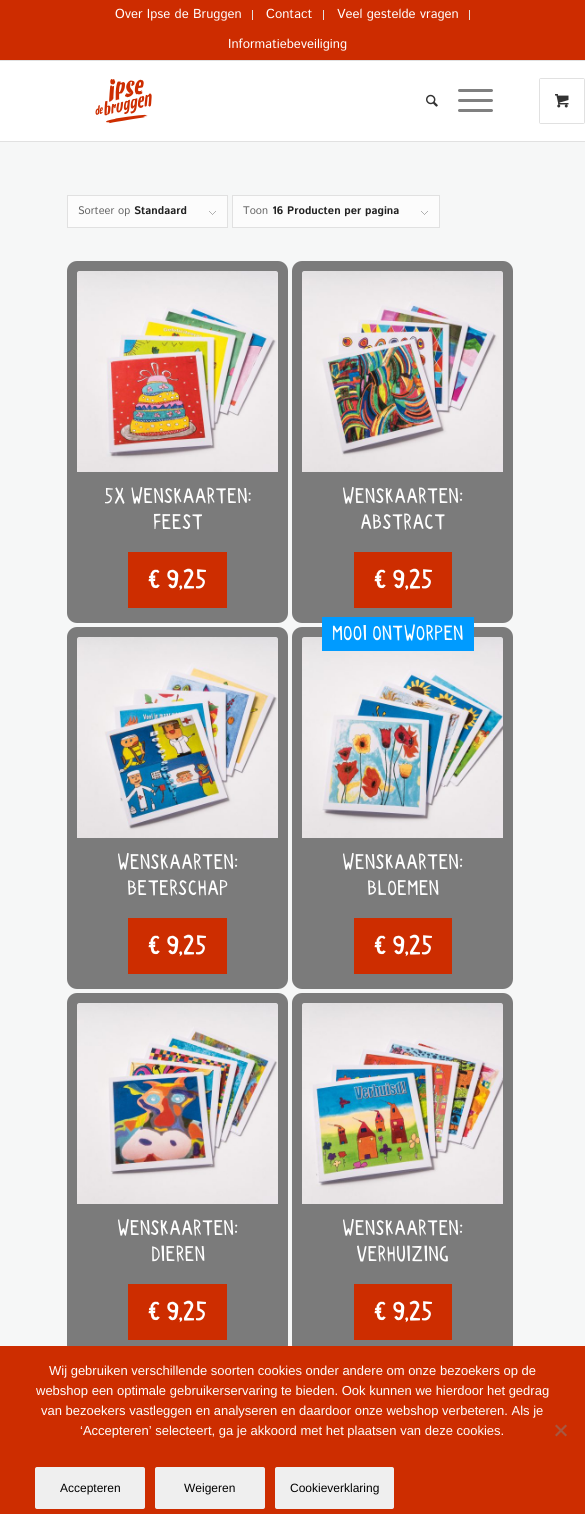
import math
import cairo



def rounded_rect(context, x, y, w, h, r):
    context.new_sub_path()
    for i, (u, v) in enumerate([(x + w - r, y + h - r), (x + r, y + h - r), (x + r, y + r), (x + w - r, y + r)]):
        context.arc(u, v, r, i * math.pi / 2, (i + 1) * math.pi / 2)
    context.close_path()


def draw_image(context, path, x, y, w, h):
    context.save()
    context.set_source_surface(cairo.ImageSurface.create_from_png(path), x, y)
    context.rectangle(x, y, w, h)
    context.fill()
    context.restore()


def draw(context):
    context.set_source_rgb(246 / 255, 247 / 255, 247 / 255)
    context.paint()
    context.set_source_rgb(205 / 255, 44 / 255, 0)
    context.rectangle(0, 0, 585, 60)
    context.fill()
    context.set_source_rgb(225 / 255, 225 / 255, 225 / 255)
    context.rectangle(0, 60, 585, 1)
    context.fill()
    context.rectangle(252, 10, 1, 10)
    context.fill()
    context.rectangle(323, 10, 1, 10)
    context.fill()
    context.rectangle(469, 10, 1, 10)
    context.fill()
    context.set_source_rgb(1, 1, 1)
    context.rectangle(0, 61, 585, 80)
    context.fill()
    context.set_source_rgb(225 / 255, 225 / 255, 225 / 255)
    context.rectangle(0, 141, 585, 1)
    context.fill()
    draw_image(context, "images/1.png", 95, 79, 57, 45)
    draw_image(context, "images/2.png", 426, 94, 12, 13)
    context.set_source_rgb(128 / 255, 128 / 255, 128 / 255)
    rounded_rect(context, 458, 99, 35, 3, 1.5)
    context.fill()
    rounded_rect(context, 458, 89, 35, 3, 1.5)
    context.fill()
    rounded_rect(context, 458, 109, 35, 3, 1.5)
    context.fill()
    rounded_rect(context, 539.5, 78.5, 45, 45, 1.5)
    context.set_source_rgb(225 / 255, 225 / 255, 225 / 255)
    context.set_line_width(1)
    context.stroke()
    context.set_source_rgb(1, 1, 1)
    context.rectangle(540, 79, 44, 44)
    context.fill()
    draw_image(context, "images/3.png", 555, 94, 14, 14)
    context.set_source_rgb(252 / 255, 252 / 255, 252 / 255)
    context.rectangle(68, 196, 159, 31)
    context.fill()
    draw_image(context, "images/4.png", 209, 211, 7, 4)
    context.rectangle(67.5, 195.5, 160, 32)
    context.set_source_rgb(225 / 255, 225 / 255, 225 / 255)
    context.stroke()
    context.set_source_rgb(252 / 255, 252 / 255, 252 / 255)
    context.rectangle(233, 196, 206, 31)
    context.fill()
    draw_image(context, "images/4.png", 421, 211, 7, 4)
    context.rectangle(232.5, 195.5, 207, 32)
    context.set_source_rgb(225 / 255, 225 / 255, 225 / 255)
    context.stroke()
    context.set_source_rgb(123 / 255, 123 / 255, 123 / 255)
    rounded_rect(context, 72, 266, 211, 352, 5)
    context.fill_preserve()
    context.set_line_width(10)
    context.stroke()
    draw_image(context, "images/5.png", 77, 271, 201, 201)
    context.set_source_rgb(205 / 255, 45 / 255, 0)
    context.rectangle(128, 552, 99, 56)
    context.fill()
    context.set_source_rgb(123 / 255, 123 / 255, 123 / 255)
    rounded_rect(context, 297, 266, 211, 352, 5)
    context.fill_preserve()
    context.stroke()
    draw_image(context, "images/6.png", 302, 271, 201, 201)
    context.set_source_rgb(205 / 255, 45 / 255, 0)
    context.rectangle(354, 552, 98, 56)
    context.fill()
    context.set_source_rgb(123 / 255, 123 / 255, 123 / 255)
    rounded_rect(context, 72, 632, 211, 352, 5)
    context.fill_preserve()
    context.stroke()
    draw_image(context, "images/7.png", 77, 637, 201, 201)
    context.set_source_rgb(205 / 255, 45 / 255, 0)
    context.rectangle(128, 918, 99, 56)
    context.fill()
    context.set_source_rgb(123 / 255, 123 / 255, 123 / 255)
    rounded_rect(context, 297, 632, 211, 352, 5)
    context.fill_preserve()
    context.stroke()
    draw_image(context, "images/8.png", 302, 637, 201, 201)
    context.set_source_rgb(0, 155 / 255, 1)
    context.rectangle(322, 617, 152, 34)
    context.fill()
    context.set_source_rgb(205 / 255, 45 / 255, 0)
    context.rectangle(354, 918, 98, 56)
    context.fill()
    context.set_source_rgb(123 / 255, 123 / 255, 123 / 255)
    rounded_rect(context, 72, 998, 211, 352, 5)
    context.fill_preserve()
    context.stroke()
    draw_image(context, "images/9.png", 77, 1003, 201, 201)
    context.set_source_rgb(205 / 255, 45 / 255, 0)
    context.rectangle(128, 1284, 99, 56)
    context.fill()
    context.set_source_rgb(123 / 255, 123 / 255, 123 / 255)
    rounded_rect(context, 297, 998, 211, 352, 5)
    context.fill_preserve()
    context.stroke()
    draw_image(context, "images/10.png", 302, 1003, 201, 201)
    context.set_source_rgb(205 / 255, 45 / 255, 0)
    context.rectangle(354, 1284, 98, 56)
    context.fill()
    context.rectangle(0, 1346, 585, 168)
    context.fill()
    context.set_source_rgb(167 / 255, 87 / 255, 64 / 255)
    context.new_path()
    context.move_to(565.5, 1424.5)
    context.line_to(567, 1426)
    context.line_to(556.5, 1436.5)
    context.line_to(555, 1435)
    context.close_path()
    context.fill()
    context.new_path()
    context.move_to(555, 1426)
    context.line_to(556.5, 1424.5)
    context.line_to(567, 1435)
    context.line_to(565.5, 1436.5)
    context.close_path()
    context.fill()
    context.set_source_rgb(239 / 255, 239 / 255, 239 / 255)
    rounded_rect(context, 35, 1467, 110, 42, 2)
    context.fill()
    rounded_rect(context, 155, 1467, 110, 42, 2)
    context.fill()
    rounded_rect(context, 275, 1467, 119, 42, 2)
    context.fill()
    context.select_font_face("Istok Web")
    context.set_font_size(13)
    context.set_source_rgb(1, 1, 1)
    context.move_to(115, 18)
    context.show_text("Over Ipse de Bruggen")
    context.move_to(266, 18)
    context.show_text("Contact")
    context.move_to(337, 18)
    context.show_text("Veel gestelde vragen")
    context.move_to(228, 48)
    context.show_text("Informatiebeveiliging")
    context.set_font_size(11)
    context.set_source_rgb(102 / 255, 102 / 255, 102 / 255)
    context.move_to(78, 214)
    context.show_text("Sorteer op")
    context.select_font_face("Istok Web", cairo.FontSlant.NORMAL, cairo.FontWeight.BOLD)
    context.set_source_rgb(34 / 255, 34 / 255, 34 / 255)
    context.move_to(134, 214)
    context.show_text("Standaard")
    context.select_font_face("Istok Web")
    context.set_source_rgb(102 / 255, 102 / 255, 102 / 255)
    context.move_to(243, 214)
    context.show_text("Toon")
    context.select_font_face("Istok Web", cairo.FontSlant.NORMAL, cairo.FontWeight.BOLD)
    context.set_source_rgb(34 / 255, 34 / 255, 34 / 255)
    context.move_to(272, 214)
    context.show_text("16 Producten per pagina")
    context.select_font_face("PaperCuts")
    context.set_font_size(20)
    context.set_source_rgb(1, 1, 1)
    context.move_to(104, 503)
    context.show_text("5X WENSKAARTEN:")
    context.move_to(153, 529)
    context.show_text("FEEST")
    context.select_font_face("PaperCuts", cairo.FontSlant.NORMAL, cairo.FontWeight.BOLD)
    context.set_font_size(24)
    context.move_to(148, 588)
    context.show_text("€ 9,25")
    context.select_font_face("PaperCuts")
    context.set_font_size(20)
    context.move_to(342, 503)
    context.show_text("WENSKAARTEN:")
    context.move_to(360, 529)
    context.show_text("ABSTRACT")
    context.select_font_face("PaperCuts", cairo.FontSlant.NORMAL, cairo.FontWeight.BOLD)
    context.set_font_size(24)
    context.move_to(374, 588)
    context.show_text("€ 9,25")
    context.select_font_face("PaperCuts")
    context.set_font_size(20)
    context.move_to(117, 869)
    context.show_text("WENSKAARTEN:")
    context.move_to(127, 895)
    context.show_text("BETERSCHAP")
    context.select_font_face("PaperCuts", cairo.FontSlant.NORMAL, cairo.FontWeight.BOLD)
    context.set_font_size(24)
    context.move_to(148, 954)
    context.show_text("€ 9,25")
    context.select_font_face("PaperCuts")
    context.set_font_size(19.5)
    context.move_to(332, 640)
    context.show_text("MOOI ONTWORPEN")
    context.set_font_size(20)
    context.move_to(342, 869)
    context.show_text("WENSKAARTEN:")
    context.move_to(367, 895)
    context.show_text("BLOEMEN")
    context.select_font_face("PaperCuts", cairo.FontSlant.NORMAL, cairo.FontWeight.BOLD)
    context.set_font_size(24)
    context.move_to(374, 954)
    context.show_text("€ 9,25")
    context.select_font_face("PaperCuts")
    context.set_font_size(20)
    context.move_to(117, 1235)
    context.show_text("WENSKAARTEN:")
    context.move_to(151, 1261)
    context.show_text("DIEREN")
    context.select_font_face("PaperCuts", cairo.FontSlant.NORMAL, cairo.FontWeight.BOLD)
    context.set_font_size(24)
    context.move_to(148, 1320)
    context.show_text("€ 9,25")
    context.select_font_face("PaperCuts")
    context.set_font_size(20)
    context.move_to(342, 1235)
    context.show_text("WENSKAARTEN:")
    context.move_to(356, 1261)
    context.show_text("VERHUIZING")
    context.select_font_face("PaperCuts", cairo.FontSlant.NORMAL, cairo.FontWeight.BOLD)
    context.set_font_size(24)
    context.move_to(374, 1320)
    context.show_text("€ 9,25")
    context.select_font_face("Liberation Sans")
    context.set_font_size(13)
    context.move_to(49, 1375)
    context.show_text("Wij gebruiken verschillende soorten cookies onder andere om onze bezoekers op de")
    context.move_to(36, 1395)
    context.show_text("webshop een optimale gebruikerservaring te bieden. Ook kunnen we hierdoor het gedrag")
    context.move_to(41, 1415)
    context.show_text("van bezoekers vastleggen en analyseren en daardoor onze webshop verbeteren. Als je")
    context.move_to(80, 1435)
    context.show_text("‘Accepteren’ selecteert, ga je akkoord met het plaatsen van deze cookies.")
    context.set_font_size(12)
    context.set_source_rgb(0, 0, 0)
    context.move_to(60, 1492)
    context.show_text("Accepteren")
    context.move_to(184, 1492)
    context.show_text("Weigeren")
    context.move_to(290, 1492)
    context.show_text("Cookieverklaring")


surface = cairo.ImageSurface(cairo.Format.RGB24, 585, 1514)
context = cairo.Context(surface)
options = cairo.FontOptions()
options.set_hint_metrics(cairo.HintMetrics.OFF)
options.set_hint_style(cairo.HintStyle.NONE)
context.set_font_options(options)
context.set_miter_limit(4)
draw(context)
surface.write_to_png("out.png")
